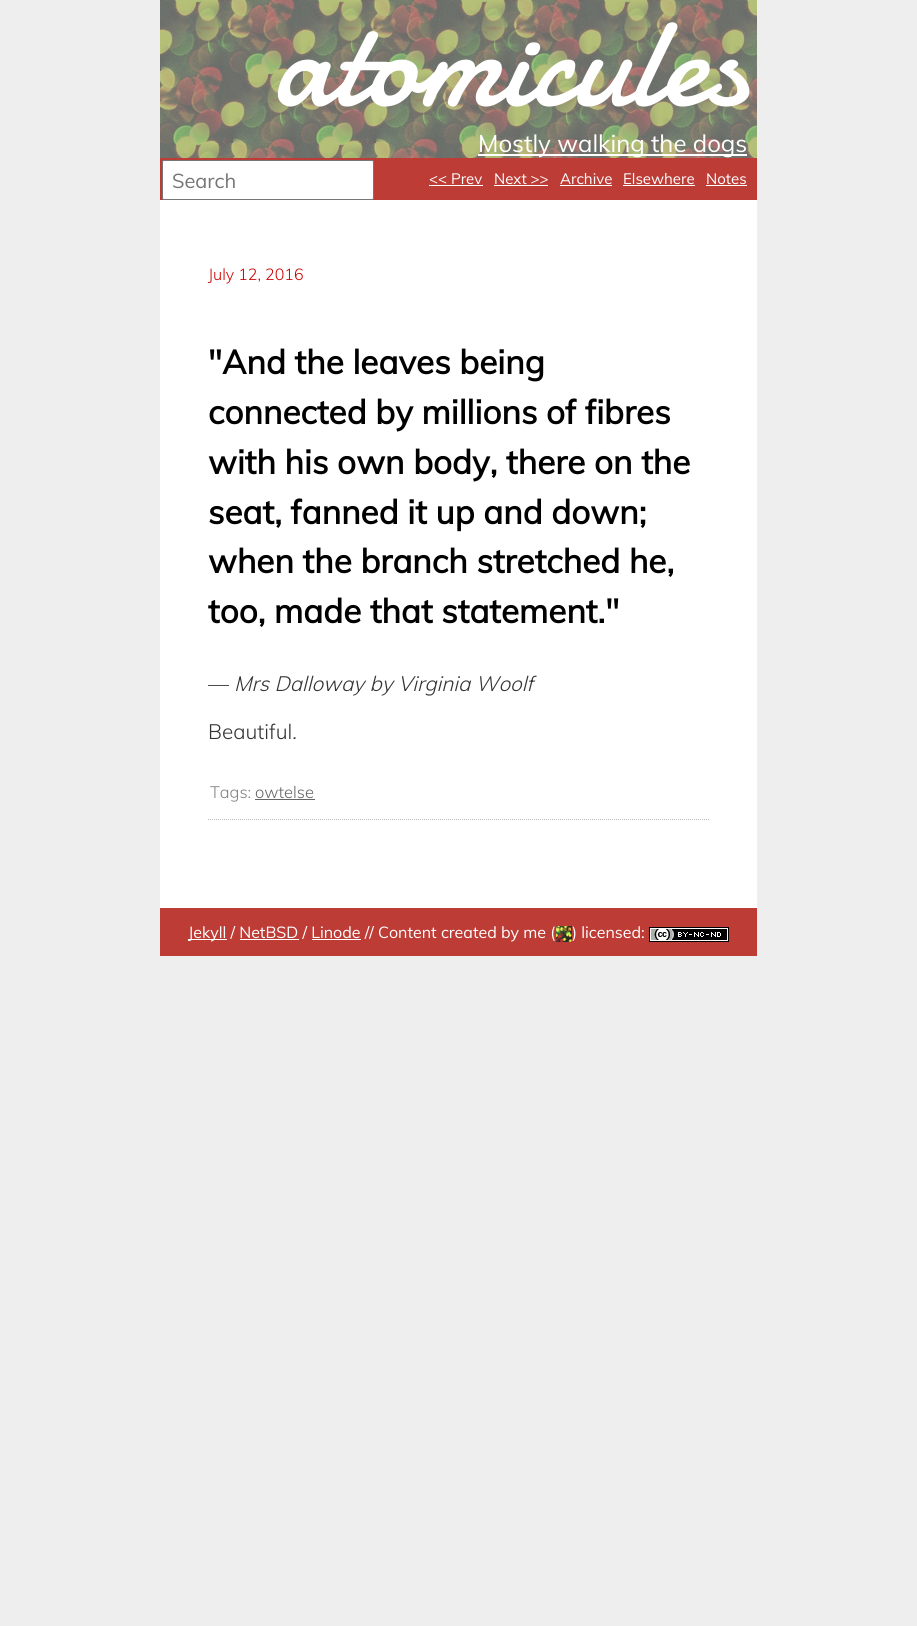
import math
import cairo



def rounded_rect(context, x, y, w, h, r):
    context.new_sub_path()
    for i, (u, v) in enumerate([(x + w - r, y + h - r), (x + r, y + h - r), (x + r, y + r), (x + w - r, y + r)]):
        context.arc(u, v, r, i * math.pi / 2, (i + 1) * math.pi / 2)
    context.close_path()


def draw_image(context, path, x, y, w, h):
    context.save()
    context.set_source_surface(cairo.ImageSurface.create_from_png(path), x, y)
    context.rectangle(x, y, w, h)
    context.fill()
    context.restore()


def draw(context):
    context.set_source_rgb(238 / 255, 238 / 255, 238 / 255)
    context.paint()
    context.set_source_rgb(1, 1, 1)
    context.rectangle(160, 200, 597, 708)
    context.fill()
    draw_image(context, "images/1.png", 160, 0, 597, 158)
    context.rectangle(478, 154, 269, 2)
    context.fill()
    context.set_source_rgb(189 / 255, 60 / 255, 54 / 255)
    context.rectangle(160, 158, 597, 42)
    context.fill()
    context.set_source_rgb(1, 1, 1)
    rounded_rect(context, 162.5, 160.5, 211, 39, 1.5)
    context.fill_preserve()
    context.set_source_rgb(118 / 255, 118 / 255, 118 / 255)
    context.set_line_width(1)
    context.stroke()
    context.set_source_rgb(1, 1, 1)
    context.rectangle(429, 185, 54, 1)
    context.fill()
    context.rectangle(494, 185, 54, 1)
    context.fill()
    context.rectangle(560, 185, 52, 1)
    context.fill()
    context.rectangle(623, 185, 72, 1)
    context.fill()
    context.rectangle(706, 185, 41, 1)
    context.fill()
    context.new_path()
    context.move_to(208, 819.5)
    context.line_to(709, 819.5)
    context.set_source_rgb(187 / 255, 187 / 255, 187 / 255)
    context.set_dash([1, 1])
    context.stroke()
    context.set_source_rgb(102 / 255, 102 / 255, 102 / 255)
    context.rectangle(255, 799, 60, 1)
    context.fill()
    context.set_source_rgb(189 / 255, 60 / 255, 54 / 255)
    context.rectangle(160, 908, 597, 48)
    context.fill()
    context.set_source_rgb(1, 1, 1)
    context.rectangle(188, 939, 39, 1)
    context.fill()
    draw_image(context, "images/2.png", 556, 926, 16, 16)
    draw_image(context, "images/3.png", 649, 927, 80, 15)
    context.rectangle(240, 939, 59, 1)
    context.fill()
    context.rectangle(312, 939, 49, 1)
    context.fill()
    context.select_font_face("Damion")
    context.set_font_size(128)
    context.move_to(274, 105)
    context.show_text("atomicules")
    context.select_font_face("Muli")
    context.set_font_size(24)
    context.move_to(478, 152)
    context.show_text("Mostly walking the dogs")
    context.set_font_size(20)
    context.set_source_rgb(117 / 255, 117 / 255, 117 / 255)
    context.move_to(172, 188)
    context.show_text("Search")
    context.set_font_size(15)
    context.set_source_rgb(1, 1, 1)
    context.move_to(429, 184)
    context.show_text("<< Prev")
    context.move_to(494, 184)
    context.show_text("Next >>")
    context.move_to(560, 184)
    context.show_text("Archive")
    context.move_to(623, 184)
    context.show_text("Elsewhere")
    context.move_to(706, 184)
    context.show_text("Notes")
    context.select_font_face("Muli Light")
    context.set_font_size(16)
    context.set_source_rgb(204 / 255, 0, 0)
    context.move_to(208, 280)
    context.show_text("July 12, 2016")
    context.select_font_face("Muli", cairo.FontSlant.NORMAL, cairo.FontWeight.BOLD)
    context.set_font_size(33.25)
    context.set_source_rgb(0, 0, 0)
    context.move_to(208, 374)
    context.show_text("\"And the leaves being")
    context.move_to(208, 424)
    context.show_text("connected by millions of fibres")
    context.move_to(208, 474)
    context.show_text("with his own body, there on the")
    context.move_to(208, 524)
    context.show_text("seat, fanned it up and down;")
    context.move_to(208, 573)
    context.show_text("when the branch stretched he,")
    context.move_to(208, 623)
    context.show_text("too, made that statement.\"")
    context.select_font_face("Muli Light")
    context.set_font_size(20.75)
    context.set_source_rgb(51 / 255, 51 / 255, 51 / 255)
    context.move_to(208, 691)
    context.show_text("—")
    context.select_font_face("Muli Light", cairo.FontSlant.ITALIC)
    context.move_to(234, 691)
    context.show_text("Mrs Dalloway by Virginia Woolf")
    context.select_font_face("Muli Light")
    context.move_to(208, 739)
    context.show_text("Beautiful.")
    context.set_font_size(16.5)
    context.set_source_rgb(128 / 255, 128 / 255, 128 / 255)
    context.move_to(210, 798)
    context.show_text("Tags:")
    context.set_source_rgb(102 / 255, 102 / 255, 102 / 255)
    context.move_to(255, 798)
    context.show_text("owtelse")
    context.select_font_face("Muli")
    context.set_font_size(16)
    context.set_source_rgb(1, 1, 1)
    context.move_to(188, 938)
    context.show_text("Jekyll / NetBSD / Linode // Content created by me (")
    context.move_to(572, 938)
    context.show_text(") licensed:")


surface = cairo.ImageSurface(cairo.Format.RGB24, 917, 1626)
context = cairo.Context(surface)
options = cairo.FontOptions()
options.set_hint_metrics(cairo.HintMetrics.OFF)
options.set_hint_style(cairo.HintStyle.NONE)
context.set_font_options(options)
context.set_miter_limit(4)
draw(context)
surface.write_to_png("out.png")
